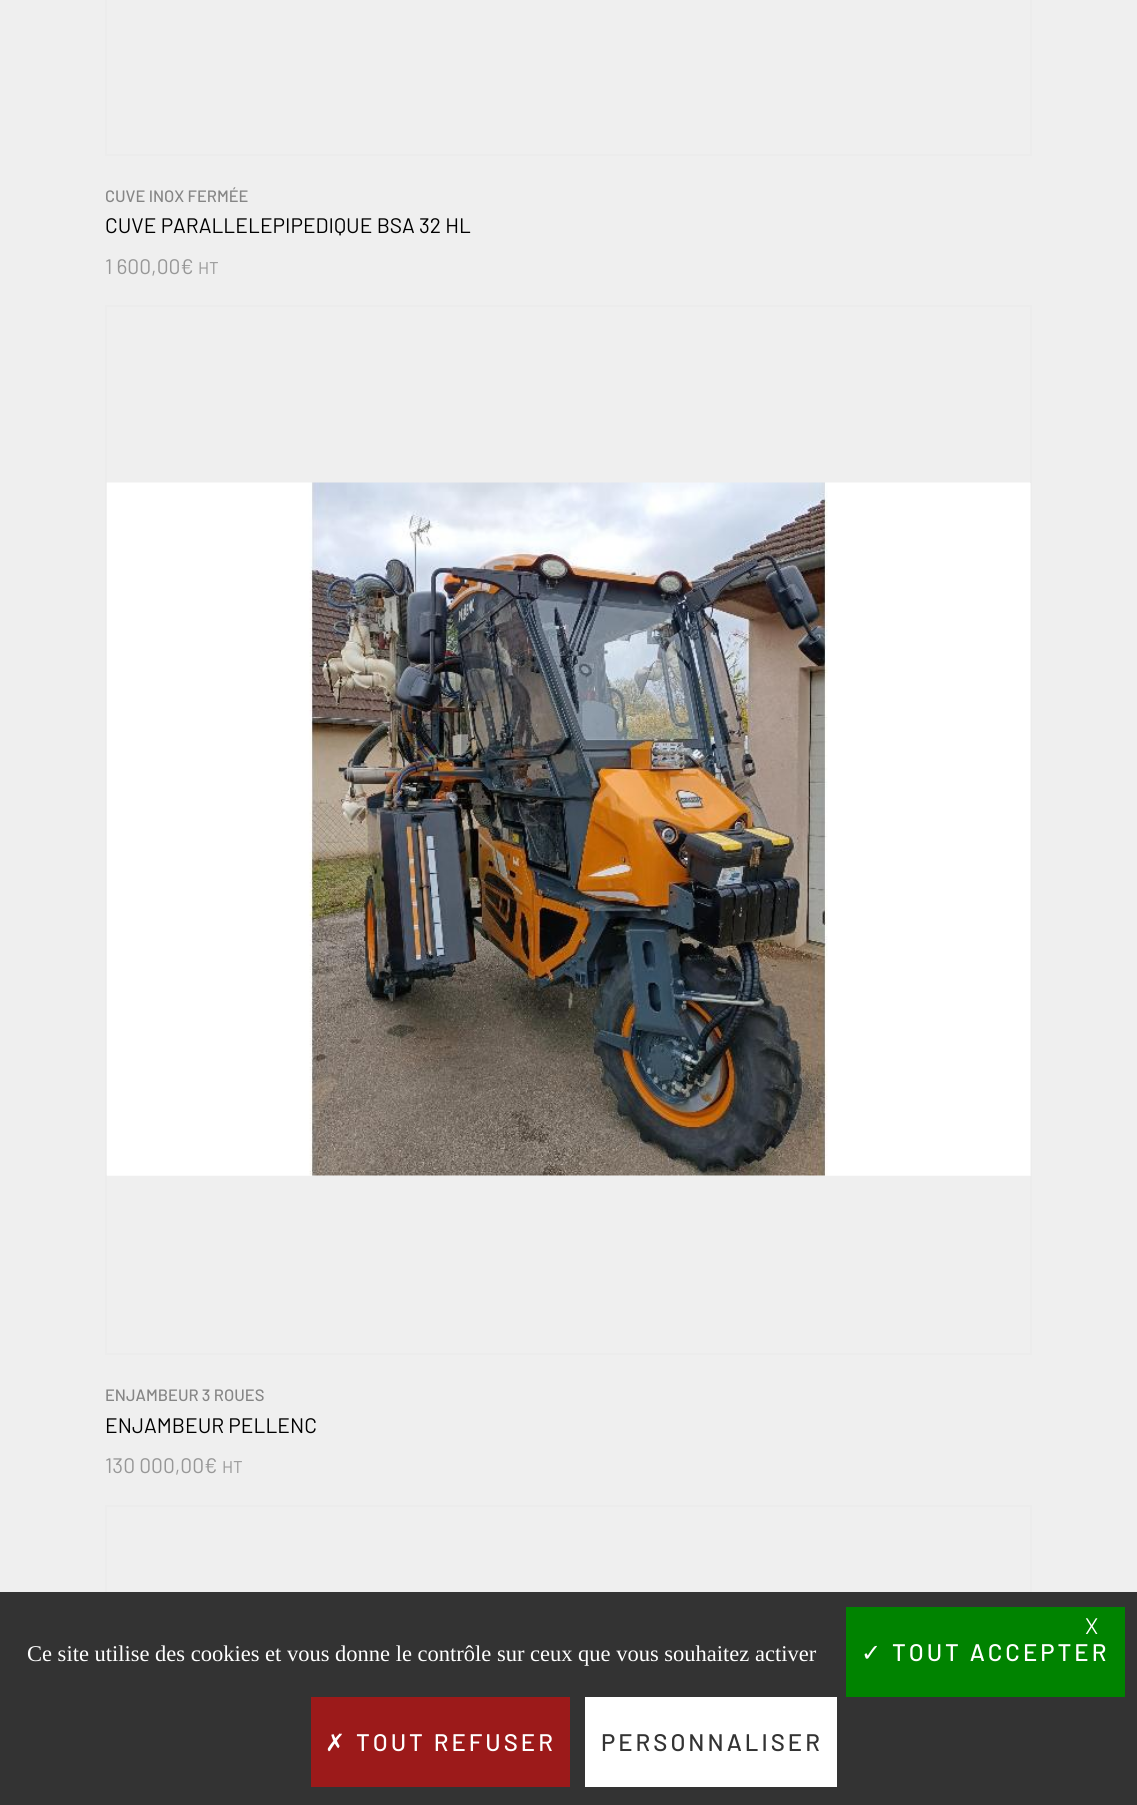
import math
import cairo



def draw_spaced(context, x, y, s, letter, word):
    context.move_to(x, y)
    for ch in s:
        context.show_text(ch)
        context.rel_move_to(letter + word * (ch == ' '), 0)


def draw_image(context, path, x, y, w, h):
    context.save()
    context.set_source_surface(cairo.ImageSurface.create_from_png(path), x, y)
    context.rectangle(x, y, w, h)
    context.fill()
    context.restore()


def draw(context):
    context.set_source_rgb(239 / 255, 239 / 255, 239 / 255)
    context.paint()
    context.rectangle(106, -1, 925, 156)
    context.set_source_rgb(236 / 255, 236 / 255, 236 / 255)
    context.stroke()
    context.rectangle(106, 306, 925, 1048)
    context.stroke()
    context.set_source_rgb(246 / 255, 246 / 255, 246 / 255)
    context.rectangle(107, 483, 924, 693)
    context.fill()
    draw_image(context, "images/1.png", 106, 482, 924, 694)
    context.rectangle(106, 1506, 925, 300)
    context.set_source_rgb(236 / 255, 236 / 255, 236 / 255)
    context.stroke()
    context.set_source_rgb(51 / 255, 51 / 255, 51 / 255)
    context.rectangle(0, 1592, 1137, 213)
    context.fill()
    context.set_source_rgb(0, 131 / 255, 0)
    context.rectangle(846, 1607, 279, 90)
    context.fill()
    context.set_source_rgb(156 / 255, 26 / 255, 26 / 255)
    context.rectangle(311, 1697, 259, 90)
    context.fill()
    context.set_source_rgb(1, 1, 1)
    context.rectangle(585, 1697, 252, 90)
    context.fill()
    context.select_font_face("Barlow Medium")
    context.set_font_size(16.5)
    context.set_source_rgb(134 / 255, 134 / 255, 134 / 255)
    context.move_to(105, 202)
    context.show_text("CUVE INOX FERMÉE")
    context.select_font_face("Barlow")
    context.set_font_size(21)
    context.set_source_rgb(0, 0, 0)
    context.move_to(105, 233)
    context.show_text("CUVE PARALLELEPIPEDIQUE BSA 32 HL")
    context.set_source_rgb(151 / 255, 151 / 255, 151 / 255)
    context.move_to(105, 274)
    context.show_text("1 600,00€")
    context.set_font_size(17)
    context.move_to(198, 274)
    context.show_text("HT")
    context.select_font_face("Barlow Medium")
    context.set_font_size(16.5)
    context.set_source_rgb(134 / 255, 134 / 255, 134 / 255)
    context.move_to(105, 1401)
    context.show_text("ENJAMBEUR 3 ROUES")
    context.select_font_face("Barlow")
    context.set_font_size(21)
    context.set_source_rgb(0, 0, 0)
    context.move_to(105, 1433)
    context.show_text("ENJAMBEUR PELLENC")
    context.set_source_rgb(151 / 255, 151 / 255, 151 / 255)
    context.move_to(105, 1473)
    context.show_text("130 000,00€")
    context.set_font_size(17)
    context.move_to(222, 1473)
    context.show_text("HT")
    context.set_font_size(22.5)
    context.set_source_rgb(1, 1, 1)
    context.move_to(1085, 1634)
    context.show_text("X")
    context.select_font_face("Liberation Serif")
    context.move_to(27, 1661)
    context.show_text("Ce site utilise des cookies et vous donne le contrôle sur ceux que vous souhaitez activer")
    context.select_font_face("DejaVu Sans")
    context.set_font_size(24)
    draw_spaced(context, 861, 1661, "✓", 3, 0)
    context.select_font_face("Barlow Medium")
    draw_spaced(context, 892, 1661, "TOUT ACCEPTER", 3, 0)
    context.select_font_face("DejaVu Sans")
    draw_spaced(context, 325, 1751, "✗", 3, 0)
    context.select_font_face("Barlow Medium")
    draw_spaced(context, 356, 1751, "TOUT REFUSER", 3, 0)
    context.set_source_rgb(51 / 255, 51 / 255, 51 / 255)
    draw_spaced(context, 601, 1751, "PERSONNALISER", 3, 0)


surface = cairo.ImageSurface(cairo.Format.RGB24, 1137, 1805)
context = cairo.Context(surface)
options = cairo.FontOptions()
options.set_hint_metrics(cairo.HintMetrics.OFF)
options.set_hint_style(cairo.HintStyle.NONE)
context.set_font_options(options)
context.set_miter_limit(4)
draw(context)
surface.write_to_png("out.png")
